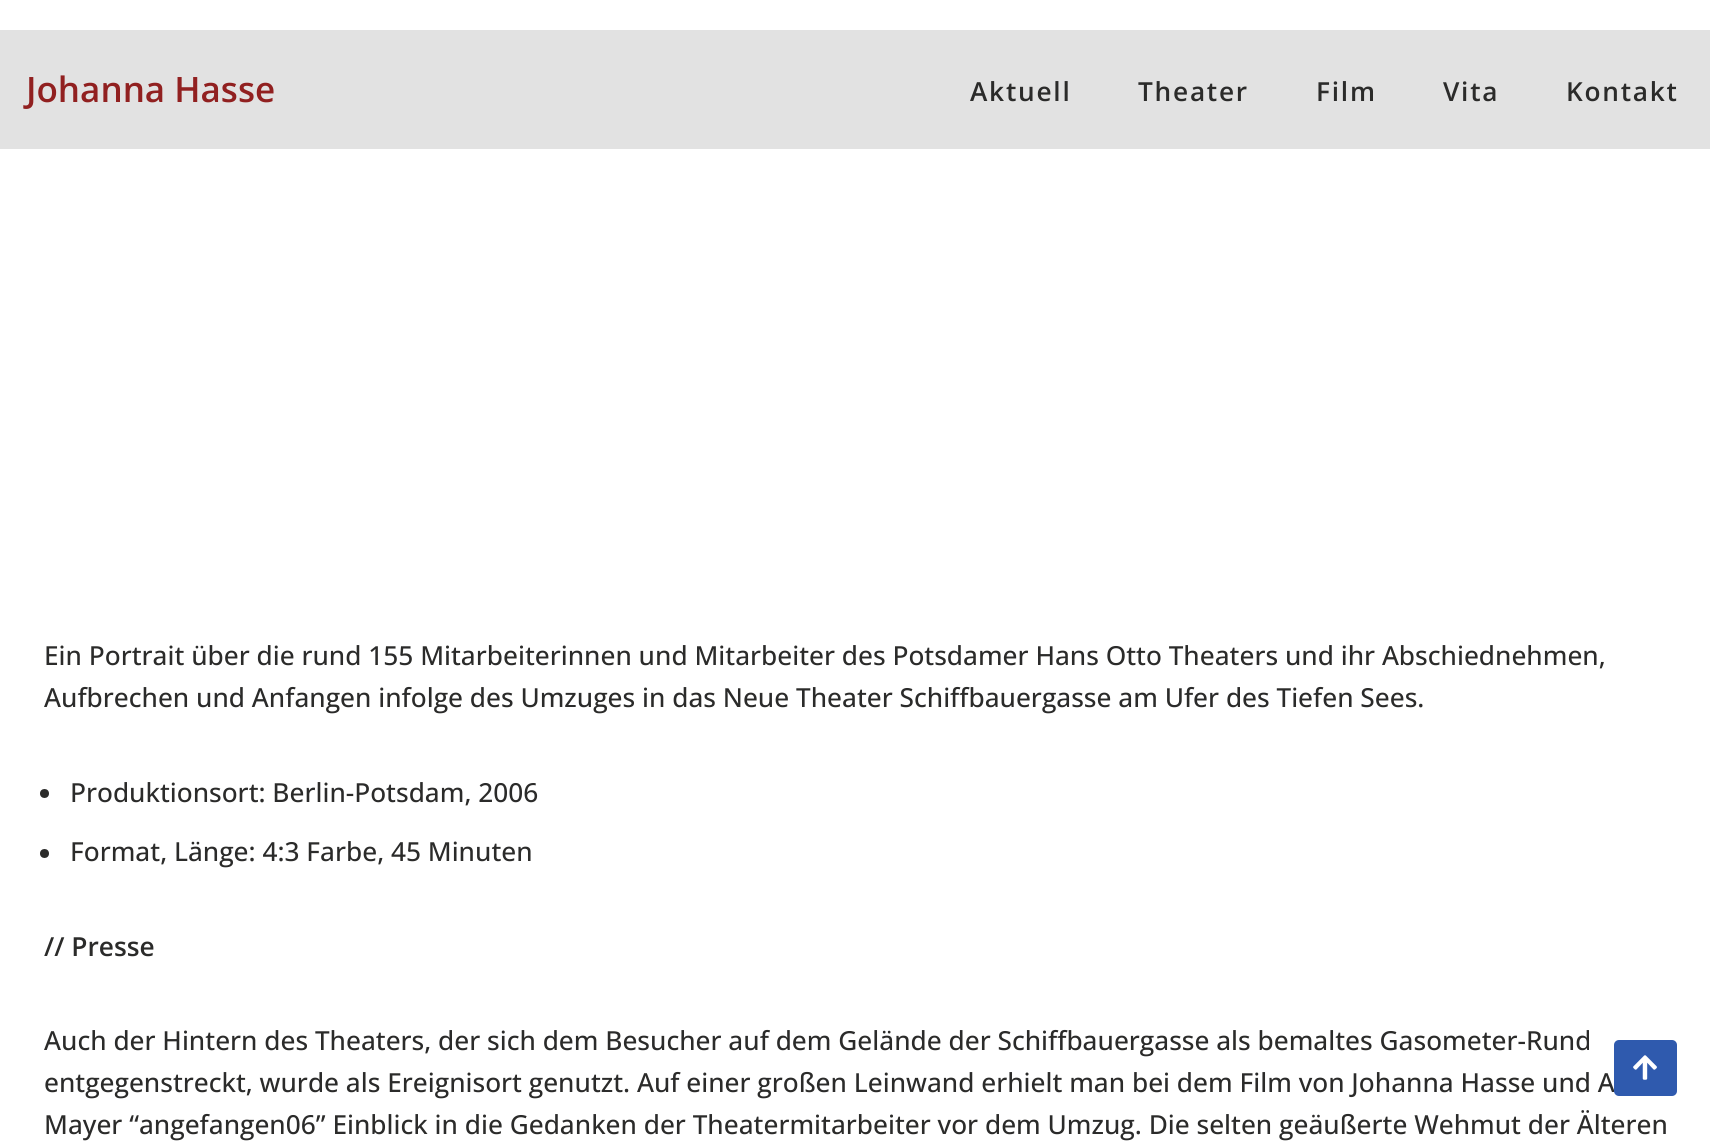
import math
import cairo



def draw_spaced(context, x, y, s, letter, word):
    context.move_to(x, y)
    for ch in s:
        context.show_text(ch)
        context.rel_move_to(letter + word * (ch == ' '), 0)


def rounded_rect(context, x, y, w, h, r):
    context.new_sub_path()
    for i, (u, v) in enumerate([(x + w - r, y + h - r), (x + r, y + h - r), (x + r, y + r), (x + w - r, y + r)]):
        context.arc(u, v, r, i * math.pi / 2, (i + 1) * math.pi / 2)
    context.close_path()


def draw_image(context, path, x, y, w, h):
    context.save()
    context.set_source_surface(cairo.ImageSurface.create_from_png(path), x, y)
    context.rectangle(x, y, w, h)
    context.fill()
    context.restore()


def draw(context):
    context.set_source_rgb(1, 1, 1)
    context.paint()
    context.set_source_rgb(226 / 255, 226 / 255, 226 / 255)
    context.rectangle(0, 30, 1710, 119)
    context.fill()
    context.set_source_rgb(43 / 255, 43 / 255, 42 / 255)
    context.arc(44.5, 793.5, 4.5, 0, 2 * math.pi)
    context.fill()
    context.arc(44.5, 853.5, 4.5, 0, 2 * math.pi)
    context.fill()
    context.select_font_face("Open Sans SemiBold")
    context.set_font_size(35)
    context.set_source_rgb(145 / 255, 32 / 255, 32 / 255)
    context.move_to(26, 102)
    context.show_text("Johanna Hasse")
    context.set_font_size(26.25)
    context.set_source_rgb(43 / 255, 43 / 255, 42 / 255)
    draw_spaced(context, 970, 101, "Aktuell", 1.75, 0)
    draw_spaced(context, 1138, 101, "Theater", 1.75, 0)
    draw_spaced(context, 1316, 101, "Film", 1.75, 0)
    draw_spaced(context, 1443, 101, "Vita", 1.75, 0)
    draw_spaced(context, 1566, 101, "Kontakt", 1.75, 0)
    context.select_font_face("Open Sans Medium")
    context.move_to(44, 665)
    context.show_text("Ein Portrait über die rund 155 Mitarbeiterinnen und Mitarbeiter des Potsdamer Hans Otto Theaters und ihr Abschiednehmen,")
    context.move_to(44, 707)
    context.show_text("Aufbrechen und Anfangen infolge des Umzuges in das Neue Theater Schiffbauergasse am Ufer des Tiefen Sees.")
    context.move_to(70, 802)
    context.show_text("Produktionsort: Berlin-Potsdam, 2006")
    context.move_to(70, 861)
    context.show_text("Format, Länge: 4:3 Farbe, 45 Minuten")
    context.select_font_face("Open Sans SemiBold")
    context.move_to(44, 956)
    context.show_text("// Presse")
    context.select_font_face("Open Sans Medium")
    context.move_to(44, 1050)
    context.show_text("Auch der Hintern des Theaters, der sich dem Besucher auf dem Gelände der Schiffbauergasse als bemaltes Gasometer-Rund")
    context.move_to(44, 1092)
    context.show_text("entgegenstreckt, wurde als Ereignisort genutzt. Auf einer großen Leinwand erhielt man bei dem Film von Johanna Hasse und A")
    context.move_to(44, 1134)
    context.show_text("Mayer “angefangen06” Einblick in die Gedanken der Theatermitarbeiter vor dem Umzug. Die selten geäußerte Wehmut der Älteren")
    context.set_source_rgb(47 / 255, 90 / 255, 174 / 255)
    rounded_rect(context, 1614, 1040, 63, 56, 5)
    context.fill()
    draw_image(context, "images/1.png", 1633, 1055, 24, 25)


surface = cairo.ImageSurface(cairo.Format.RGB24, 1710, 1147)
context = cairo.Context(surface)
options = cairo.FontOptions()
options.set_hint_metrics(cairo.HintMetrics.OFF)
options.set_hint_style(cairo.HintStyle.NONE)
context.set_font_options(options)
context.set_miter_limit(4)
draw(context)
surface.write_to_png("out.png")
